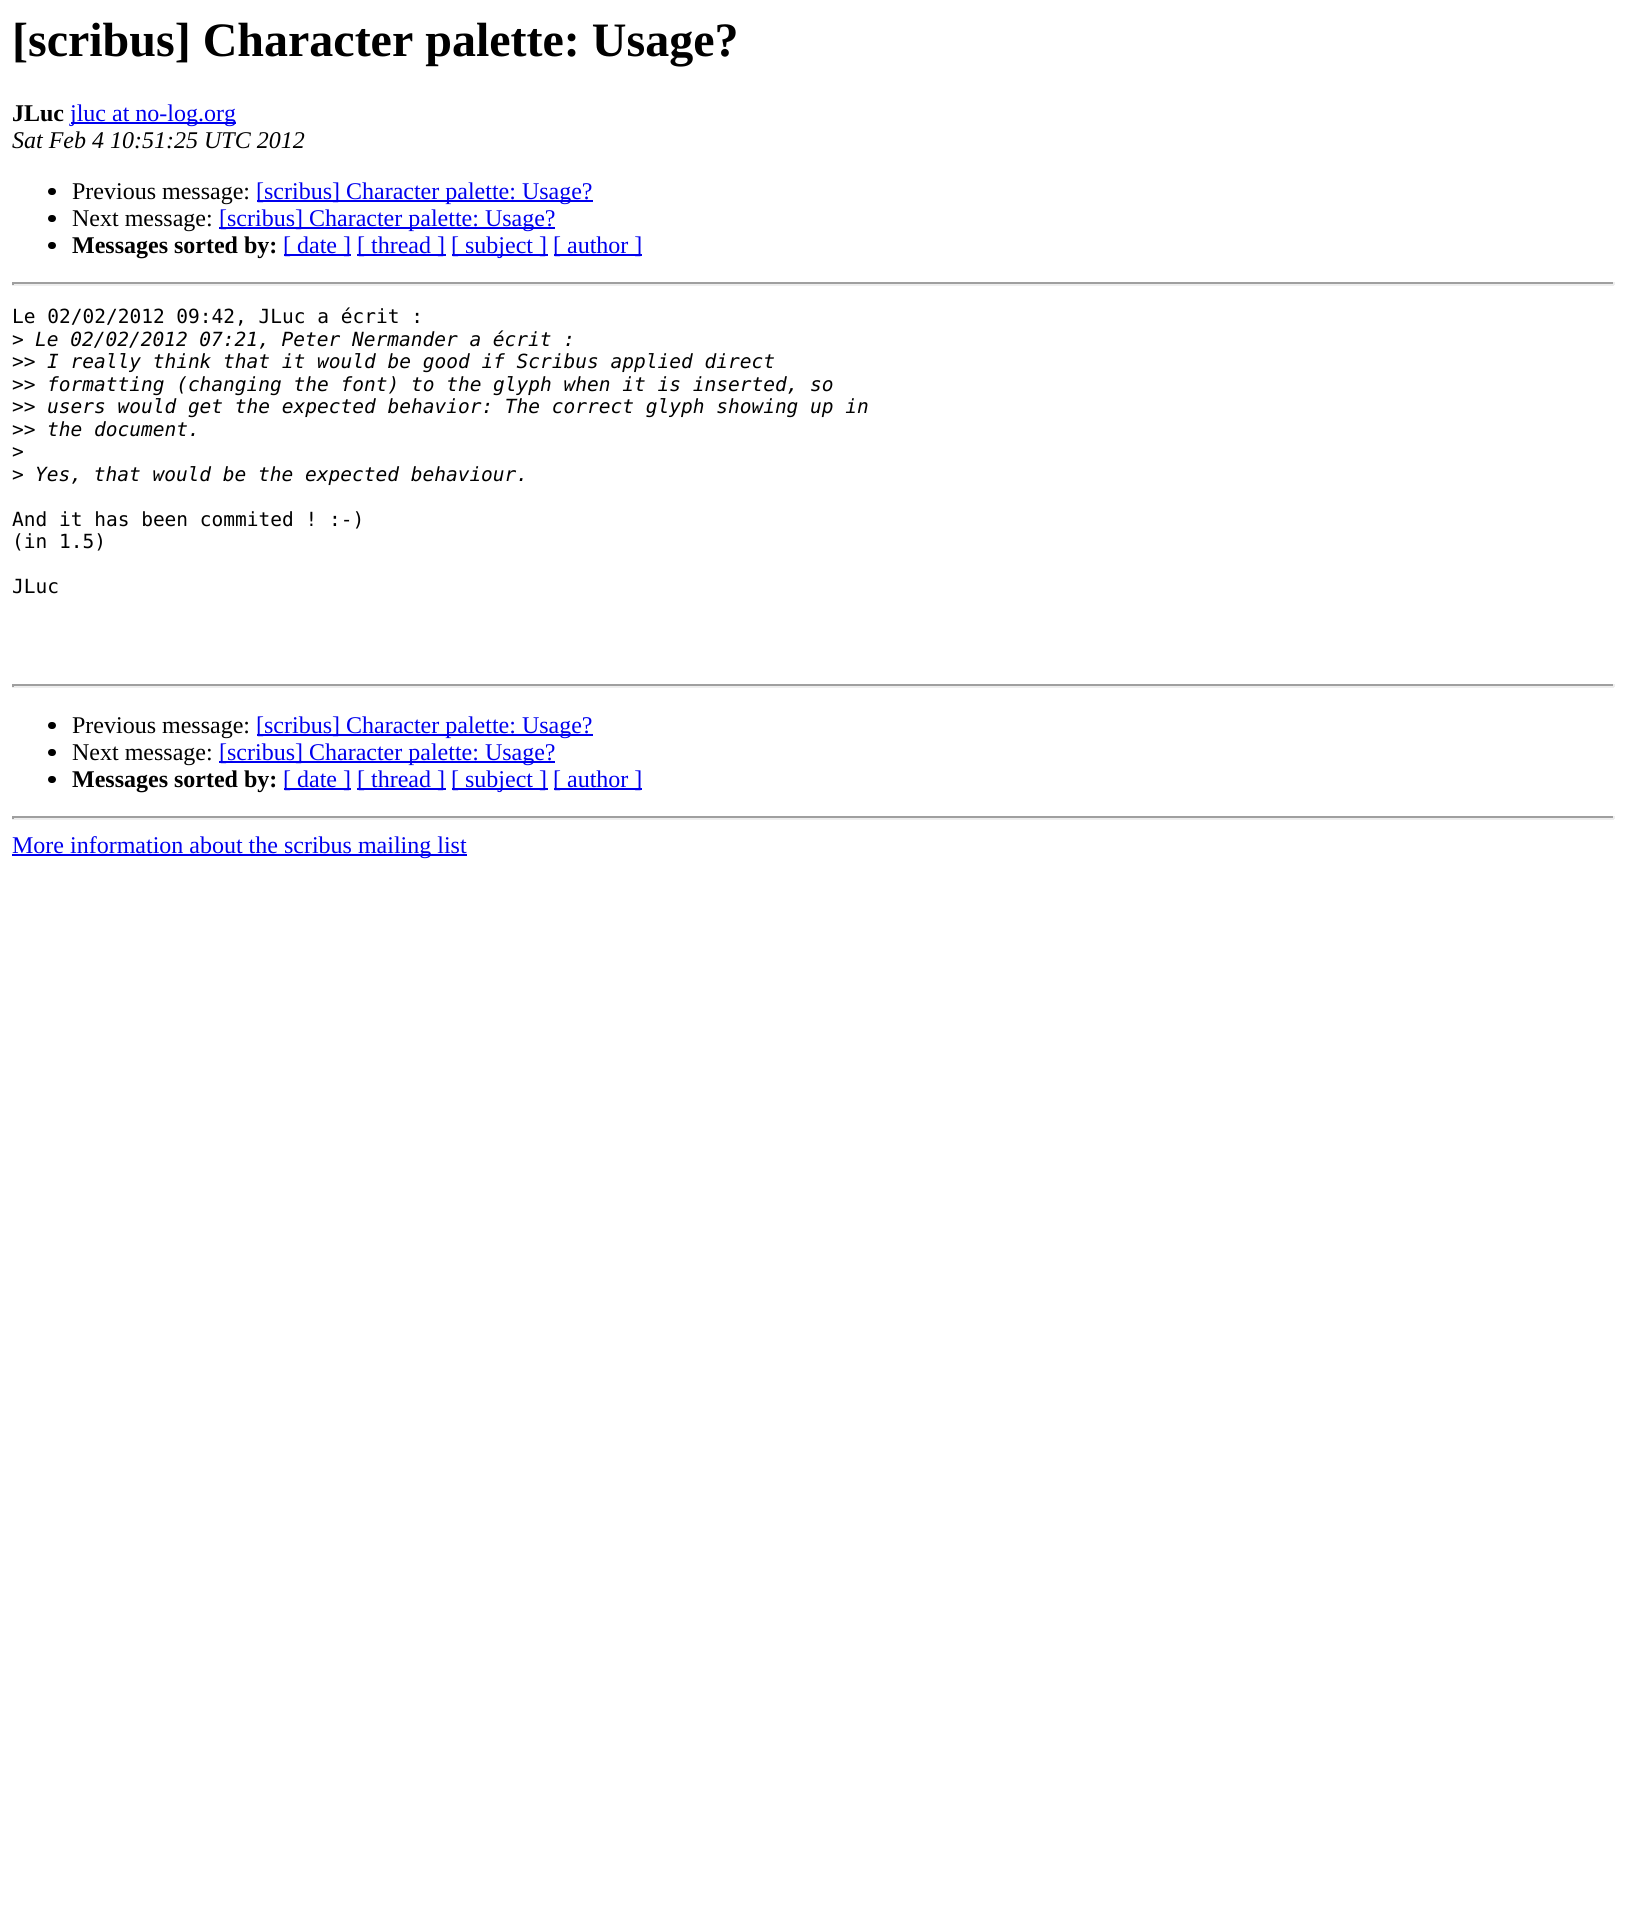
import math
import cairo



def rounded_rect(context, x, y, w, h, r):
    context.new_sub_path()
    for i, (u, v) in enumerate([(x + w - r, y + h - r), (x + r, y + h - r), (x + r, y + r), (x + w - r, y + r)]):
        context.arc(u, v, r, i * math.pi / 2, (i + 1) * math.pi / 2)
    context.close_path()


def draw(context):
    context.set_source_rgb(1, 1, 1)
    context.paint()
    context.set_source_rgb(0, 0, 238 / 255)
    context.rectangle(71, 122, 165, 2)
    context.fill()
    context.set_source_rgb(0, 0, 0)
    rounded_rect(context, 48, 188, 8, 7, 3.5)
    context.fill()
    context.set_source_rgb(0, 0, 238 / 255)
    context.rectangle(257, 200, 336, 2)
    context.fill()
    context.set_source_rgb(0, 0, 0)
    rounded_rect(context, 48, 215, 8, 7, 3.5)
    context.fill()
    context.set_source_rgb(0, 0, 238 / 255)
    context.rectangle(219, 227, 336, 2)
    context.fill()
    context.set_source_rgb(0, 0, 0)
    rounded_rect(context, 48, 242, 8, 7, 3.5)
    context.fill()
    context.set_source_rgb(0, 0, 238 / 255)
    context.rectangle(284, 254, 67, 2)
    context.fill()
    context.rectangle(357, 254, 89, 2)
    context.fill()
    context.rectangle(452, 254, 96, 2)
    context.fill()
    context.rectangle(554, 254, 88, 2)
    context.fill()
    context.set_source_rgb(159 / 255, 159 / 255, 159 / 255)
    context.rectangle(12, 282, 1602, 2)
    context.fill()
    context.set_source_rgb(238 / 255, 238 / 255, 238 / 255)
    context.rectangle(1613, 282, 2, 3)
    context.fill()
    context.rectangle(12, 284, 1602, 2)
    context.fill()
    context.set_source_rgb(159 / 255, 159 / 255, 159 / 255)
    context.rectangle(12, 282, 2, 3)
    context.fill()
    context.rectangle(12, 684, 1602, 2)
    context.fill()
    context.set_source_rgb(238 / 255, 238 / 255, 238 / 255)
    context.rectangle(1613, 684, 2, 3)
    context.fill()
    context.rectangle(12, 686, 1602, 2)
    context.fill()
    context.set_source_rgb(159 / 255, 159 / 255, 159 / 255)
    context.rectangle(12, 684, 2, 3)
    context.fill()
    context.set_source_rgb(0, 0, 0)
    rounded_rect(context, 48, 722, 8, 7, 3.5)
    context.fill()
    context.set_source_rgb(0, 0, 238 / 255)
    context.rectangle(257, 734, 336, 2)
    context.fill()
    context.set_source_rgb(0, 0, 0)
    rounded_rect(context, 48, 749, 8, 7, 3.5)
    context.fill()
    context.set_source_rgb(0, 0, 238 / 255)
    context.rectangle(219, 761, 336, 2)
    context.fill()
    context.set_source_rgb(0, 0, 0)
    rounded_rect(context, 48, 776, 8, 7, 3.5)
    context.fill()
    context.set_source_rgb(0, 0, 238 / 255)
    context.rectangle(284, 788, 67, 2)
    context.fill()
    context.rectangle(357, 788, 89, 2)
    context.fill()
    context.rectangle(452, 788, 96, 2)
    context.fill()
    context.rectangle(554, 788, 88, 2)
    context.fill()
    context.set_source_rgb(159 / 255, 159 / 255, 159 / 255)
    context.rectangle(12, 816, 1602, 2)
    context.fill()
    context.set_source_rgb(238 / 255, 238 / 255, 238 / 255)
    context.rectangle(1613, 816, 2, 3)
    context.fill()
    context.rectangle(12, 818, 1602, 2)
    context.fill()
    context.set_source_rgb(159 / 255, 159 / 255, 159 / 255)
    context.rectangle(12, 816, 2, 3)
    context.fill()
    context.set_source_rgb(0, 0, 238 / 255)
    context.rectangle(12, 854, 455, 2)
    context.fill()
    context.select_font_face("Liberation Serif", cairo.FontSlant.NORMAL, cairo.FontWeight.BOLD)
    context.set_font_size(48)
    context.set_source_rgb(0, 0, 0)
    context.move_to(12, 56)
    context.show_text("[scribus] Character palette: Usage?")
    context.set_font_size(24)
    context.move_to(12, 121)
    context.show_text("JLuc")
    context.select_font_face("Liberation Serif")
    context.set_source_rgb(0, 0, 238 / 255)
    context.move_to(70, 121)
    context.show_text("jluc at no-log.org")
    context.select_font_face("Liberation Serif", cairo.FontSlant.ITALIC)
    context.set_source_rgb(0, 0, 0)
    context.move_to(12, 148)
    context.show_text("Sat Feb 4 10:51:25 UTC 2012")
    context.select_font_face("Liberation Serif")
    context.move_to(72, 199)
    context.show_text("Previous message:")
    context.set_source_rgb(0, 0, 238 / 255)
    context.move_to(256, 199)
    context.show_text("[scribus] Character palette: Usage?")
    context.set_source_rgb(0, 0, 0)
    context.move_to(72, 226)
    context.show_text("Next message:")
    context.set_source_rgb(0, 0, 238 / 255)
    context.move_to(219, 226)
    context.show_text("[scribus] Character palette: Usage?")
    context.select_font_face("Liberation Serif", cairo.FontSlant.NORMAL, cairo.FontWeight.BOLD)
    context.set_source_rgb(0, 0, 0)
    context.move_to(72, 253)
    context.show_text("Messages sorted by:")
    context.select_font_face("Liberation Serif")
    context.set_source_rgb(0, 0, 238 / 255)
    context.move_to(283, 253)
    context.show_text("[ date ]")
    context.move_to(357, 253)
    context.show_text("[ thread ]")
    context.move_to(451, 253)
    context.show_text("[ subject ]")
    context.move_to(553, 253)
    context.show_text("[ author ]")
    context.select_font_face("DejaVu Sans Mono")
    context.set_font_size(19.5)
    context.set_source_rgb(0, 0, 0)
    context.move_to(12, 323)
    context.show_text("Le 02/02/2012 09:42, JLuc a écrit :")
    context.move_to(12, 346)
    context.show_text(">")
    context.select_font_face("DejaVu Sans Mono", cairo.FontSlant.ITALIC)
    context.move_to(35, 346)
    context.show_text("Le 02/02/2012 07:21, Peter Nermander a écrit :")
    context.select_font_face("DejaVu Sans Mono")
    context.move_to(12, 368)
    context.show_text(">>")
    context.select_font_face("DejaVu Sans Mono", cairo.FontSlant.ITALIC)
    context.move_to(47, 368)
    context.show_text("I really think that it would be good if Scribus applied direct")
    context.select_font_face("DejaVu Sans Mono")
    context.move_to(12, 391)
    context.show_text(">>")
    context.select_font_face("DejaVu Sans Mono", cairo.FontSlant.ITALIC)
    context.move_to(47, 391)
    context.show_text("formatting (changing the font) to the glyph when it is inserted, so")
    context.select_font_face("DejaVu Sans Mono")
    context.move_to(12, 413)
    context.show_text(">>")
    context.select_font_face("DejaVu Sans Mono", cairo.FontSlant.ITALIC)
    context.move_to(47, 413)
    context.show_text("users would get the expected behavior: The correct glyph showing up in")
    context.select_font_face("DejaVu Sans Mono")
    context.move_to(12, 436)
    context.show_text(">>")
    context.select_font_face("DejaVu Sans Mono", cairo.FontSlant.ITALIC)
    context.move_to(47, 436)
    context.show_text("the document.")
    context.select_font_face("DejaVu Sans Mono")
    context.move_to(12, 458)
    context.show_text(">")
    context.move_to(12, 481)
    context.show_text(">")
    context.select_font_face("DejaVu Sans Mono", cairo.FontSlant.ITALIC)
    context.move_to(35, 481)
    context.show_text("Yes, that would be the expected behaviour.")
    context.select_font_face("DejaVu Sans Mono")
    context.move_to(12, 526)
    context.show_text("And it has been commited ! :-)")
    context.move_to(12, 548)
    context.show_text("(in 1.5)")
    context.move_to(12, 593)
    context.show_text("JLuc")
    context.select_font_face("Liberation Serif")
    context.set_font_size(24)
    context.move_to(72, 733)
    context.show_text("Previous message:")
    context.set_source_rgb(0, 0, 238 / 255)
    context.move_to(256, 733)
    context.show_text("[scribus] Character palette: Usage?")
    context.set_source_rgb(0, 0, 0)
    context.move_to(72, 760)
    context.show_text("Next message:")
    context.set_source_rgb(0, 0, 238 / 255)
    context.move_to(219, 760)
    context.show_text("[scribus] Character palette: Usage?")
    context.select_font_face("Liberation Serif", cairo.FontSlant.NORMAL, cairo.FontWeight.BOLD)
    context.set_source_rgb(0, 0, 0)
    context.move_to(72, 787)
    context.show_text("Messages sorted by:")
    context.select_font_face("Liberation Serif")
    context.set_source_rgb(0, 0, 238 / 255)
    context.move_to(283, 787)
    context.show_text("[ date ]")
    context.move_to(357, 787)
    context.show_text("[ thread ]")
    context.move_to(451, 787)
    context.show_text("[ subject ]")
    context.move_to(553, 787)
    context.show_text("[ author ]")
    context.move_to(12, 853)
    context.show_text("More information about the scribus mailing list")


surface = cairo.ImageSurface(cairo.Format.RGB24, 1626, 1905)
context = cairo.Context(surface)
options = cairo.FontOptions()
options.set_hint_metrics(cairo.HintMetrics.OFF)
options.set_hint_style(cairo.HintStyle.NONE)
context.set_font_options(options)
context.set_miter_limit(4)
draw(context)
surface.write_to_png("out.png")
